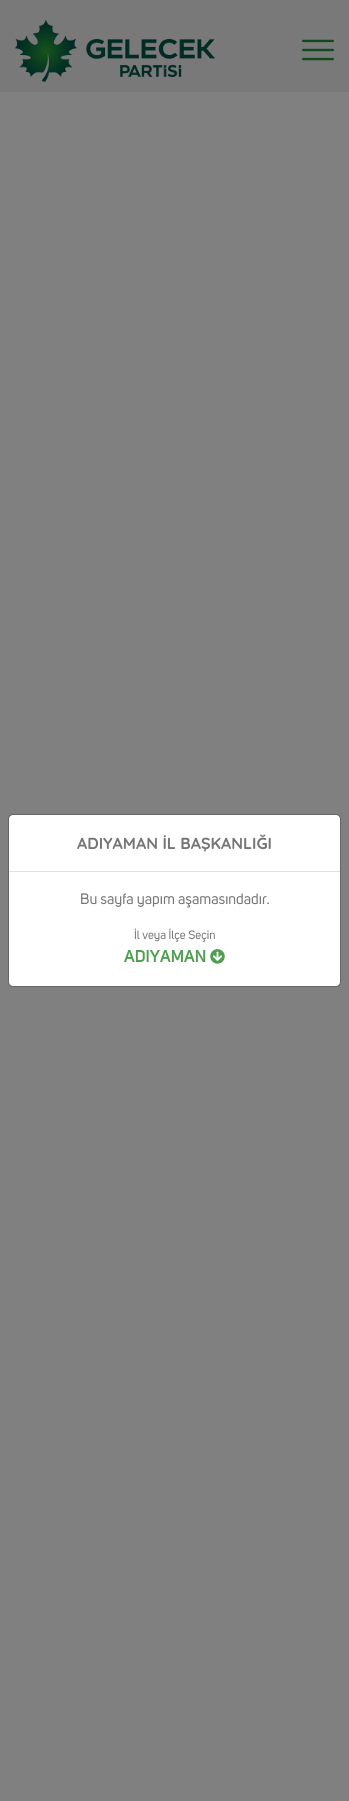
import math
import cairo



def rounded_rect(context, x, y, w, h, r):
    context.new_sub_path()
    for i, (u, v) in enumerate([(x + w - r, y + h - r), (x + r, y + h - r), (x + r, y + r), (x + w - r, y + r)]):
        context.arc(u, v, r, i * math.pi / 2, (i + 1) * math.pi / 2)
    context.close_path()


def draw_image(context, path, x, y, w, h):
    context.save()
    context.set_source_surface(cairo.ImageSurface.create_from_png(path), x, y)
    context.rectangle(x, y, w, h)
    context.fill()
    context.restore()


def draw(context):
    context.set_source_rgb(128 / 255, 128 / 255, 128 / 255)
    context.paint()
    context.set_source_rgb(121 / 255, 121 / 255, 121 / 255)
    context.rectangle(0, 0, 349, 92)
    context.fill()
    draw_image(context, "images/1.png", 15, 20, 200, 62)
    draw_image(context, "images/2.png", 302, 39, 32, 22)
    context.set_source_rgb(1, 1, 1)
    rounded_rect(context, 9, 815, 331, 171, 4)
    context.fill()
    rounded_rect(context, 8.5, 814.5, 332, 172, 4.5)
    context.set_source_rgba(0, 0, 0, 0.2)
    context.set_line_width(1)
    context.stroke()
    context.set_source_rgb(222 / 255, 226 / 255, 230 / 255)
    context.rectangle(9, 871, 331, 1)
    context.fill()
    draw_image(context, "images/3.png", 210, 949, 15, 15)
    context.select_font_face("Quicksand", cairo.FontSlant.NORMAL, cairo.FontWeight.BOLD)
    context.set_font_size(16)
    context.set_source_rgb(117 / 255, 117 / 255, 117 / 255)
    context.move_to(77, 849)
    context.show_text("ADIYAMAN İL BAŞKANLIĞI")
    context.select_font_face("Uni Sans")
    context.set_font_size(15)
    context.move_to(80, 904)
    context.show_text("Bu sayfa yapım aşamasındadır.")
    context.set_font_size(12)
    context.move_to(134, 939)
    context.show_text("İl veya İlçe Seçin")
    context.select_font_face("Uni Sans SemiBold")
    context.set_font_size(17)
    context.set_source_rgb(79 / 255, 158 / 255, 81 / 255)
    context.move_to(124, 962)
    context.show_text("ADIYAMAN")


surface = cairo.ImageSurface(cairo.Format.RGB24, 349, 1801)
context = cairo.Context(surface)
options = cairo.FontOptions()
options.set_hint_metrics(cairo.HintMetrics.OFF)
options.set_hint_style(cairo.HintStyle.NONE)
context.set_font_options(options)
context.set_miter_limit(4)
draw(context)
surface.write_to_png("out.png")
